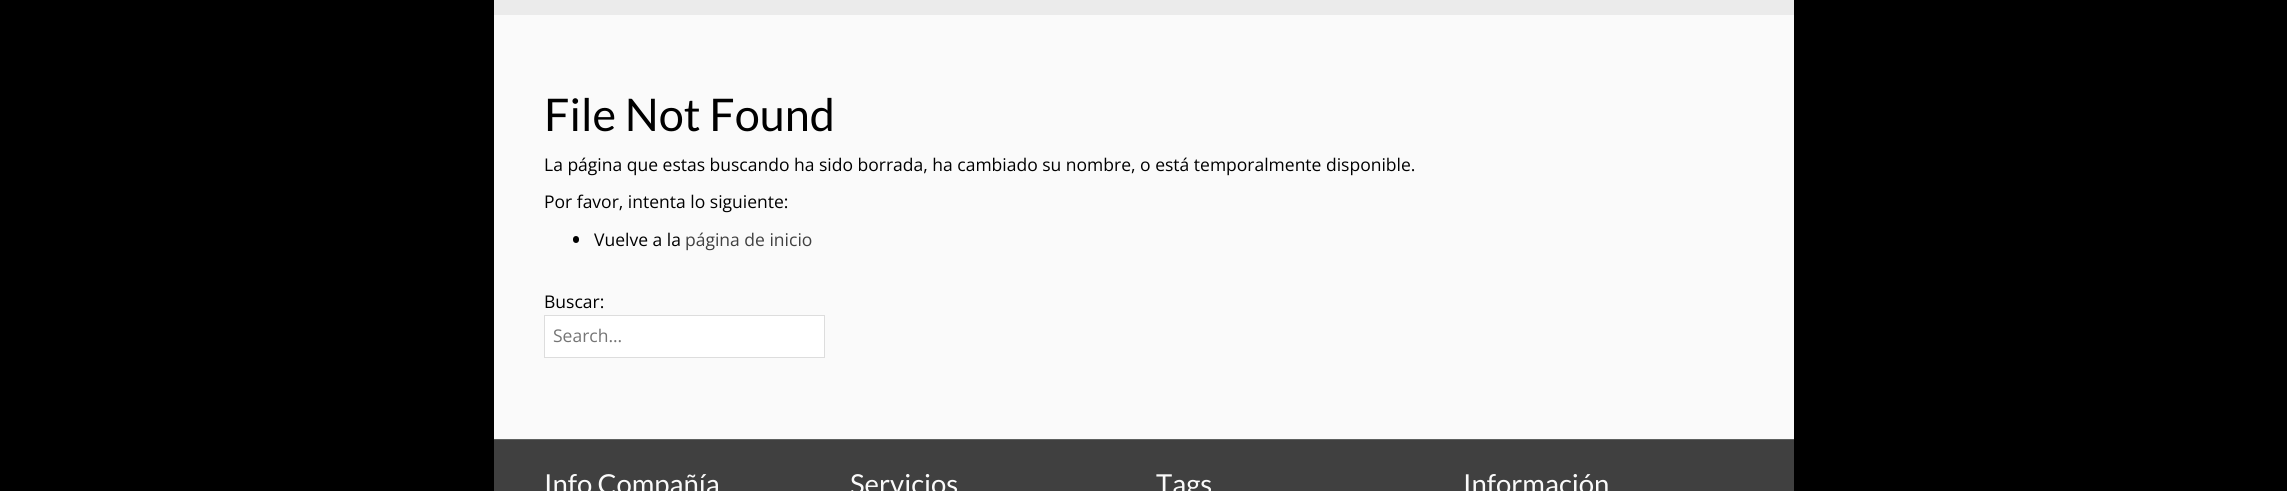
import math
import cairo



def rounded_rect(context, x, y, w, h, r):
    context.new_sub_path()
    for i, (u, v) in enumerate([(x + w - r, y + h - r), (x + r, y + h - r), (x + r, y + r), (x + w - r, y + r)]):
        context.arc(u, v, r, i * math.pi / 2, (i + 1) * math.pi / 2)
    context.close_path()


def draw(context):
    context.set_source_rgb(0, 0, 0)
    context.paint()
    context.set_source_rgb(250 / 255, 250 / 255, 250 / 255)
    context.rectangle(494, 15, 1300, 424)
    context.fill()
    context.set_source_rgb(235 / 255, 235 / 255, 235 / 255)
    context.rectangle(494, 0, 1300, 15)
    context.fill()
    context.set_source_rgb(0, 0, 0)
    rounded_rect(context, 573, 236, 6, 7, 3)
    context.fill()
    context.set_source_rgb(1, 1, 1)
    context.rectangle(544.5, 315.5, 280, 42)
    context.fill_preserve()
    context.set_source_rgb(221 / 255, 221 / 255, 221 / 255)
    context.set_line_width(1)
    context.stroke()
    context.set_source_rgb(64 / 255, 64 / 255, 64 / 255)
    context.rectangle(494, 440, 1300, 51)
    context.fill()
    context.set_source_rgb(94 / 255, 96 / 255, 95 / 255)
    context.rectangle(494, 439, 1300, 1)
    context.fill()
    context.select_font_face("Lato")
    context.set_font_size(45)
    context.set_source_rgb(0, 0, 0)
    context.move_to(544, 131)
    context.show_text("File Not Found")
    context.select_font_face("Open Sans")
    context.set_font_size(17.5)
    context.move_to(544, 171)
    context.show_text("La página que estas buscando ha sido borrada, ha cambiado su nombre, o está temporalmente disponible.")
    context.move_to(544, 208)
    context.show_text("Por favor, intenta lo siguiente:")
    context.move_to(594, 246)
    context.show_text("Vuelve a la")
    context.set_source_rgb(64 / 255, 64 / 255, 64 / 255)
    context.move_to(685, 246)
    context.show_text("página de inicio")
    context.set_source_rgb(0, 0, 0)
    context.move_to(544, 308)
    context.show_text("Buscar:")
    context.set_source_rgb(117 / 255, 117 / 255, 117 / 255)
    context.move_to(553, 342)
    context.show_text("Search...")
    context.select_font_face("Lato")
    context.set_font_size(27.5)
    context.set_source_rgb(250 / 255, 250 / 255, 250 / 255)
    context.move_to(544, 494)
    context.show_text("Info Compañía")
    context.move_to(850, 494)
    context.show_text("Servicios")
    context.move_to(1156, 494)
    context.show_text("Tags")
    context.move_to(1463, 494)
    context.show_text("Información")


surface = cairo.ImageSurface(cairo.Format.RGB24, 2287, 491)
context = cairo.Context(surface)
options = cairo.FontOptions()
options.set_hint_metrics(cairo.HintMetrics.OFF)
options.set_hint_style(cairo.HintStyle.NONE)
context.set_font_options(options)
context.set_miter_limit(4)
draw(context)
surface.write_to_png("out.png")
